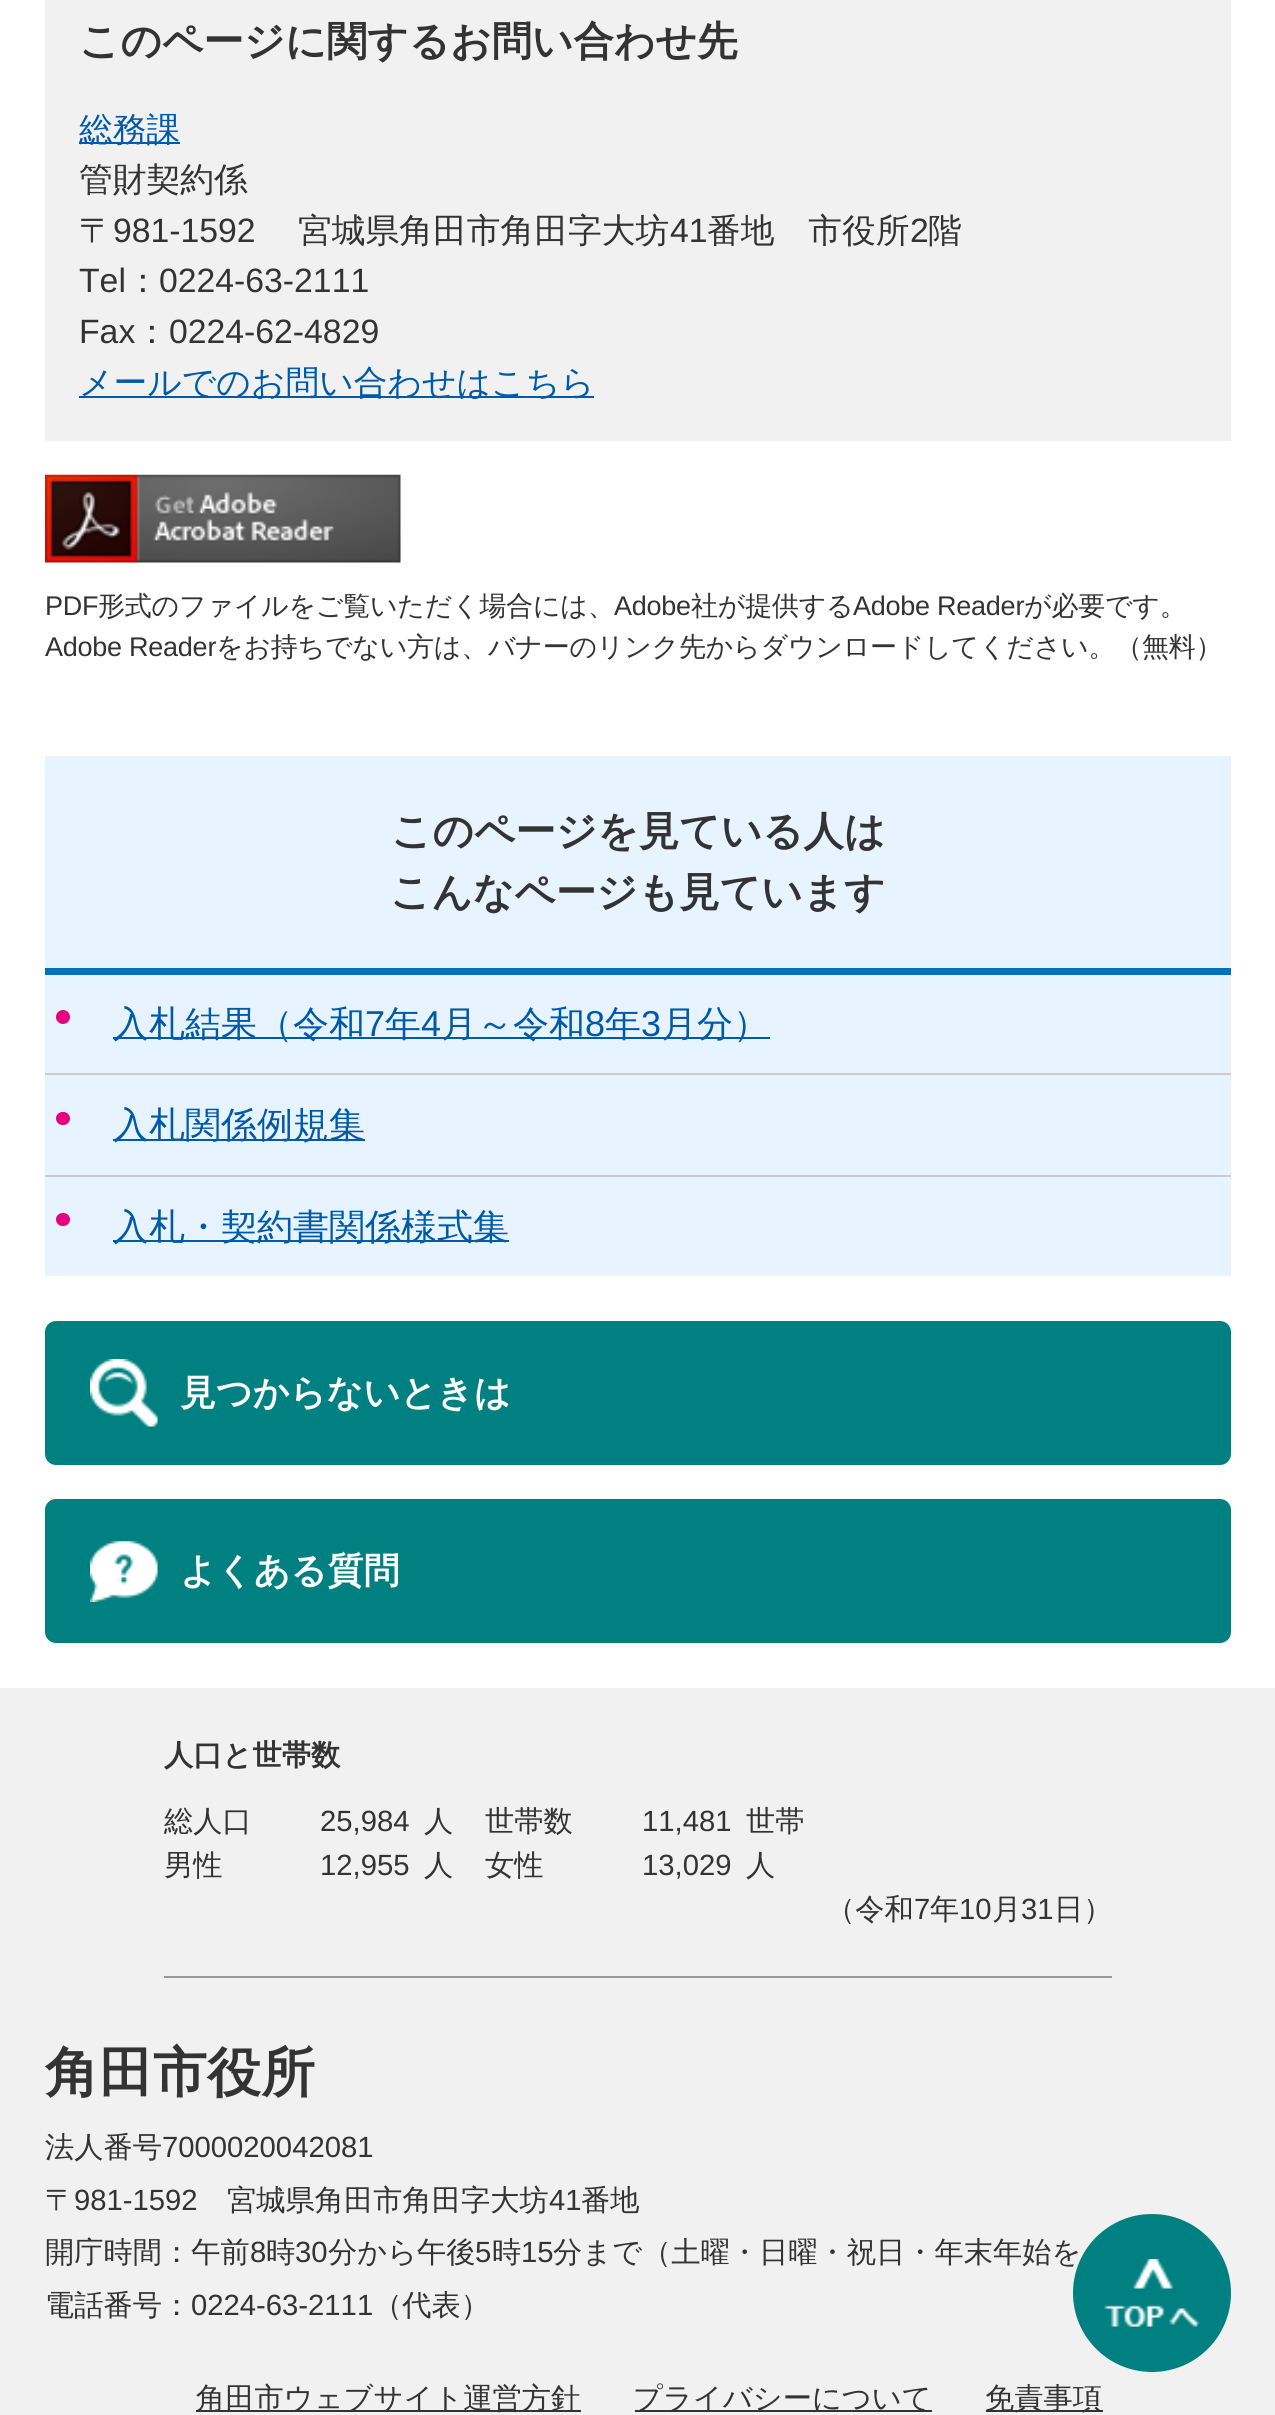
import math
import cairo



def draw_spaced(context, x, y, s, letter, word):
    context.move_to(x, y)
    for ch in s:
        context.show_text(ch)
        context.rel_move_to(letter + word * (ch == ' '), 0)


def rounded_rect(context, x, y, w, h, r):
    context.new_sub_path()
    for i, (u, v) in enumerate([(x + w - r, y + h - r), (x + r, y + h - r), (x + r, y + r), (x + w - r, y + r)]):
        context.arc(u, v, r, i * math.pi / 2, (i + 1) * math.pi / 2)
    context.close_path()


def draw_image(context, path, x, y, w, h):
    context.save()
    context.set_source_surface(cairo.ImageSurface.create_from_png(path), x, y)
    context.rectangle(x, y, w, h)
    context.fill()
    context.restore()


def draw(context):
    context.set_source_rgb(1, 1, 1)
    context.paint()
    context.set_source_rgb(241 / 255, 241 / 255, 241 / 255)
    context.rectangle(45, 0, 1186, 441)
    context.fill()
    context.set_source_rgb(0, 90 / 255, 170 / 255)
    context.rectangle(79, 142, 101, 2)
    context.fill()
    context.rectangle(79, 396, 515, 2)
    context.fill()
    draw_image(context, "images/1.png", 45, 474, 356, 89)
    context.set_source_rgb(231 / 255, 243 / 255, 254 / 255)
    context.rectangle(45, 756, 1186, 520)
    context.fill()
    context.set_source_rgb(0, 113 / 255, 190 / 255)
    context.rectangle(45, 968, 1186, 7)
    context.fill()
    context.set_source_rgb(204 / 255, 204 / 255, 204 / 255)
    context.rectangle(45, 1073, 1186, 2)
    context.fill()
    context.set_source_rgb(228 / 255, 0, 127 / 255)
    context.arc(63, 1017, 7, 0, 2 * math.pi)
    context.fill()
    context.set_source_rgb(0, 90 / 255, 170 / 255)
    context.rectangle(113, 1037, 657, 2)
    context.fill()
    context.set_source_rgb(204 / 255, 204 / 255, 204 / 255)
    context.rectangle(45, 1175, 1186, 2)
    context.fill()
    context.set_source_rgb(228 / 255, 0, 127 / 255)
    rounded_rect(context, 56, 1112, 14, 13, 6.5)
    context.fill()
    context.set_source_rgb(0, 90 / 255, 170 / 255)
    context.rectangle(113, 1139, 252, 2)
    context.fill()
    context.set_source_rgb(228 / 255, 0, 127 / 255)
    rounded_rect(context, 56, 1213, 14, 13, 6.5)
    context.fill()
    context.set_source_rgb(0, 90 / 255, 170 / 255)
    context.rectangle(113, 1240, 396, 2)
    context.fill()
    context.set_source_rgb(0, 128 / 255, 129 / 255)
    rounded_rect(context, 45, 1321, 1186, 144, 11)
    context.fill()
    draw_image(context, "images/2.png", 90, 1359, 68, 68)
    rounded_rect(context, 45, 1499, 1186, 144, 11)
    context.fill()
    draw_image(context, "images/3.png", 90, 1541, 68, 61)
    context.set_source_rgb(241 / 255, 241 / 255, 241 / 255)
    context.rectangle(0, 1688, 1275, 727)
    context.fill()
    context.set_source_rgb(153 / 255, 153 / 255, 153 / 255)
    context.rectangle(164, 1976, 948, 2)
    context.fill()
    context.set_source_rgb(51 / 255, 51 / 255, 51 / 255)
    context.rectangle(196, 2410, 385, 2)
    context.fill()
    context.rectangle(635, 2410, 297, 2)
    context.fill()
    context.rectangle(986, 2410, 117, 2)
    context.fill()
    context.select_font_face("WenQuanYi Zen Hei", cairo.FontSlant.NORMAL, cairo.FontWeight.BOLD)
    context.set_font_size(40.5)
    context.move_to(79, 55)
    context.show_text("このページに関するお問い合わせ先")
    context.select_font_face("WenQuanYi Zen Hei Medium")
    context.set_font_size(33.75)
    context.set_source_rgb(0, 90 / 255, 170 / 255)
    context.move_to(79, 141)
    context.show_text("総務課")
    context.set_source_rgb(51 / 255, 51 / 255, 51 / 255)
    context.move_to(79, 191)
    context.show_text("管財契約係")
    context.move_to(79, 242)
    context.show_text("〒")
    context.select_font_face("Liberation Sans")
    context.move_to(113, 242)
    context.show_text("981-1592")
    context.select_font_face("WenQuanYi Zen Hei Medium")
    context.move_to(298, 242)
    context.show_text("宮城県角田市角田字大坊")
    context.select_font_face("Liberation Sans")
    context.move_to(670, 242)
    context.show_text("41")
    context.select_font_face("WenQuanYi Zen Hei Medium")
    context.move_to(707, 242)
    context.show_text("番地　市役所")
    context.select_font_face("Liberation Sans")
    context.move_to(910, 242)
    context.show_text("2")
    context.select_font_face("WenQuanYi Zen Hei Medium")
    context.move_to(928, 242)
    context.show_text("階")
    context.select_font_face("Liberation Sans")
    context.move_to(79, 292)
    context.show_text("Tel")
    context.select_font_face("WenQuanYi Zen Hei Medium")
    context.move_to(126, 292)
    context.show_text("：")
    context.select_font_face("Liberation Sans")
    context.move_to(159, 292)
    context.show_text("0224-63-2111")
    context.move_to(79, 343)
    context.show_text("Fax")
    context.select_font_face("WenQuanYi Zen Hei Medium")
    context.move_to(135, 343)
    context.show_text("：")
    context.select_font_face("Liberation Sans")
    context.move_to(169, 343)
    context.show_text("0224-62-4829")
    context.select_font_face("WenQuanYi Zen Hei Medium")
    context.set_source_rgb(0, 90 / 255, 170 / 255)
    context.move_to(79, 394)
    context.show_text("メールでのお問い合わせはこちら")
    context.select_font_face("Liberation Sans")
    context.set_font_size(27)
    context.set_source_rgb(51 / 255, 51 / 255, 51 / 255)
    draw_spaced(context, 45, 615, "PDF", -0.25, 0)
    context.select_font_face("WenQuanYi Zen Hei Medium")
    draw_spaced(context, 98, 615, "形式のファイルをご覧いただく場合には、", -0.25, 0)
    context.select_font_face("Liberation Sans")
    draw_spaced(context, 614, 615, "Adobe", -0.25, 0)
    context.select_font_face("WenQuanYi Zen Hei Medium")
    draw_spaced(context, 691, 615, "社が提供する", -0.25, 0)
    context.select_font_face("Liberation Sans")
    draw_spaced(context, 853, 615, "Adobe Reader", -0.25, 0)
    context.select_font_face("WenQuanYi Zen Hei Medium")
    draw_spaced(context, 1024, 615, "が必要です。", -0.25, 0)
    context.select_font_face("Liberation Sans")
    draw_spaced(context, 45, 656, "Adobe Reader", -0.25, 0)
    context.select_font_face("WenQuanYi Zen Hei Medium")
    draw_spaced(context, 216, 656, "をお持ちでない方は、バナーのリンク先からダウンロードしてください。（無料）", -0.25, 0)
    context.select_font_face("WenQuanYi Zen Hei", cairo.FontSlant.NORMAL, cairo.FontWeight.BOLD)
    context.set_font_size(40.5)
    context.move_to(391, 845)
    context.show_text("このページを見ている人は")
    context.move_to(390, 906)
    context.show_text("こんなページも見ています")
    context.select_font_face("WenQuanYi Zen Hei Medium")
    context.set_font_size(36)
    context.set_source_rgb(0, 90 / 255, 170 / 255)
    context.move_to(113, 1036)
    context.show_text("入札結果（令和")
    context.select_font_face("Liberation Sans")
    context.move_to(365, 1036)
    context.show_text("7")
    context.select_font_face("WenQuanYi Zen Hei Medium")
    context.move_to(385, 1036)
    context.show_text("年")
    context.select_font_face("Liberation Sans")
    context.move_to(421, 1036)
    context.show_text("4")
    context.select_font_face("WenQuanYi Zen Hei Medium")
    context.move_to(441, 1036)
    context.show_text("月～令和")
    context.select_font_face("Liberation Sans")
    context.move_to(585, 1036)
    context.show_text("8")
    context.select_font_face("WenQuanYi Zen Hei Medium")
    context.move_to(605, 1036)
    context.show_text("年")
    context.select_font_face("Liberation Sans")
    context.move_to(641, 1036)
    context.show_text("3")
    context.select_font_face("WenQuanYi Zen Hei Medium")
    context.move_to(661, 1036)
    context.show_text("月分）")
    context.move_to(113, 1137)
    context.show_text("入札関係例規集")
    context.move_to(113, 1239)
    context.show_text("入札・契約書関係様式集")
    context.select_font_face("WenQuanYi Zen Hei", cairo.FontSlant.NORMAL, cairo.FontWeight.BOLD)
    context.set_source_rgb(1, 1, 1)
    context.move_to(180, 1405)
    context.show_text("見つからないときは")
    context.move_to(180, 1583)
    context.show_text("よくある質問")
    context.set_font_size(29.25)
    context.set_source_rgb(51 / 255, 51 / 255, 51 / 255)
    context.move_to(164, 1765)
    context.show_text("人口と世帯数")
    context.select_font_face("WenQuanYi Zen Hei Medium")
    context.move_to(164, 1831)
    context.show_text("総人口")
    context.select_font_face("Liberation Sans")
    context.move_to(320, 1831)
    context.show_text("25,984")
    context.select_font_face("WenQuanYi Zen Hei Medium")
    context.move_to(424, 1831)
    context.show_text("人")
    context.move_to(485, 1831)
    context.show_text("世帯数")
    context.select_font_face("Liberation Sans")
    context.move_to(642, 1831)
    context.show_text("11,481")
    context.select_font_face("WenQuanYi Zen Hei Medium")
    context.move_to(746, 1831)
    context.show_text("世帯")
    context.move_to(164, 1875)
    context.show_text("男性")
    context.select_font_face("Liberation Sans")
    context.move_to(320, 1875)
    context.show_text("12,955")
    context.select_font_face("WenQuanYi Zen Hei Medium")
    context.move_to(424, 1875)
    context.show_text("人")
    context.move_to(485, 1875)
    context.show_text("女性")
    context.select_font_face("Liberation Sans")
    context.move_to(642, 1875)
    context.show_text("13,029")
    context.select_font_face("WenQuanYi Zen Hei Medium")
    context.move_to(746, 1875)
    context.show_text("人")
    context.move_to(826, 1919)
    context.show_text("（令和")
    context.select_font_face("Liberation Sans")
    context.move_to(914, 1919)
    context.show_text("7")
    context.select_font_face("WenQuanYi Zen Hei Medium")
    context.move_to(930, 1919)
    context.show_text("年")
    context.select_font_face("Liberation Sans")
    context.move_to(959, 1919)
    context.show_text("10")
    context.select_font_face("WenQuanYi Zen Hei Medium")
    context.move_to(992, 1919)
    context.show_text("月")
    context.select_font_face("Liberation Sans")
    context.move_to(1021, 1919)
    context.show_text("31")
    context.select_font_face("WenQuanYi Zen Hei Medium")
    context.move_to(1054, 1919)
    context.show_text("日）")
    context.select_font_face("WenQuanYi Zen Hei", cairo.FontSlant.NORMAL, cairo.FontWeight.BOLD)
    context.set_font_size(54)
    context.move_to(45, 2091)
    context.show_text("角田市役所")
    context.select_font_face("WenQuanYi Zen Hei Medium")
    context.set_font_size(29.25)
    context.move_to(45, 2157)
    context.show_text("法人番号")
    context.select_font_face("Liberation Sans")
    context.move_to(162, 2157)
    context.show_text("7000020042081")
    context.select_font_face("WenQuanYi Zen Hei Medium")
    context.move_to(45, 2210)
    context.show_text("〒")
    context.select_font_face("Liberation Sans")
    context.move_to(74, 2210)
    context.show_text("981-1592")
    context.select_font_face("WenQuanYi Zen Hei Medium")
    context.move_to(227, 2210)
    context.show_text("宮城県角田市角田字大坊")
    context.select_font_face("Liberation Sans")
    context.move_to(549, 2210)
    context.show_text("41")
    context.select_font_face("WenQuanYi Zen Hei Medium")
    context.move_to(581, 2210)
    context.show_text("番地")
    context.move_to(45, 2262)
    context.show_text("開庁時間：午前")
    context.select_font_face("Liberation Sans")
    context.move_to(250, 2262)
    context.show_text("8")
    context.select_font_face("WenQuanYi Zen Hei Medium")
    context.move_to(266, 2262)
    context.show_text("時")
    context.select_font_face("Liberation Sans")
    context.move_to(295, 2262)
    context.show_text("30")
    context.select_font_face("WenQuanYi Zen Hei Medium")
    context.move_to(328, 2262)
    context.show_text("分から午後")
    context.select_font_face("Liberation Sans")
    context.move_to(475, 2262)
    context.show_text("5")
    context.select_font_face("WenQuanYi Zen Hei Medium")
    context.move_to(492, 2262)
    context.show_text("時")
    context.select_font_face("Liberation Sans")
    context.move_to(521, 2262)
    context.show_text("15")
    context.select_font_face("WenQuanYi Zen Hei Medium")
    context.move_to(553, 2262)
    context.show_text("分まで（土曜・日曜・祝日・年末年始を")
    context.move_to(45, 2315)
    context.show_text("電話番号：")
    context.select_font_face("Liberation Sans")
    context.move_to(191, 2315)
    context.show_text("0224-63-2111")
    context.select_font_face("WenQuanYi Zen Hei Medium")
    context.move_to(373, 2315)
    context.show_text("（代表）")
    context.move_to(196, 2408)
    context.show_text("角田市ウェブサイト運営方針")
    context.move_to(633, 2408)
    context.show_text("プライバシーについて")
    context.move_to(985, 2408)
    context.show_text("免責事項")
    context.set_source_rgb(0, 128 / 255, 129 / 255)
    context.new_path()
    context.arc(1152, 2293, 79, 0, 2 * math.pi)
    context.fill()
    draw_image(context, "images/4.png", 1104, 2259, 96, 68)


surface = cairo.ImageSurface(cairo.Format.RGB24, 1275, 2415)
context = cairo.Context(surface)
options = cairo.FontOptions()
options.set_hint_metrics(cairo.HintMetrics.OFF)
options.set_hint_style(cairo.HintStyle.NONE)
context.set_font_options(options)
context.set_miter_limit(4)
draw(context)
surface.write_to_png("out.png")
